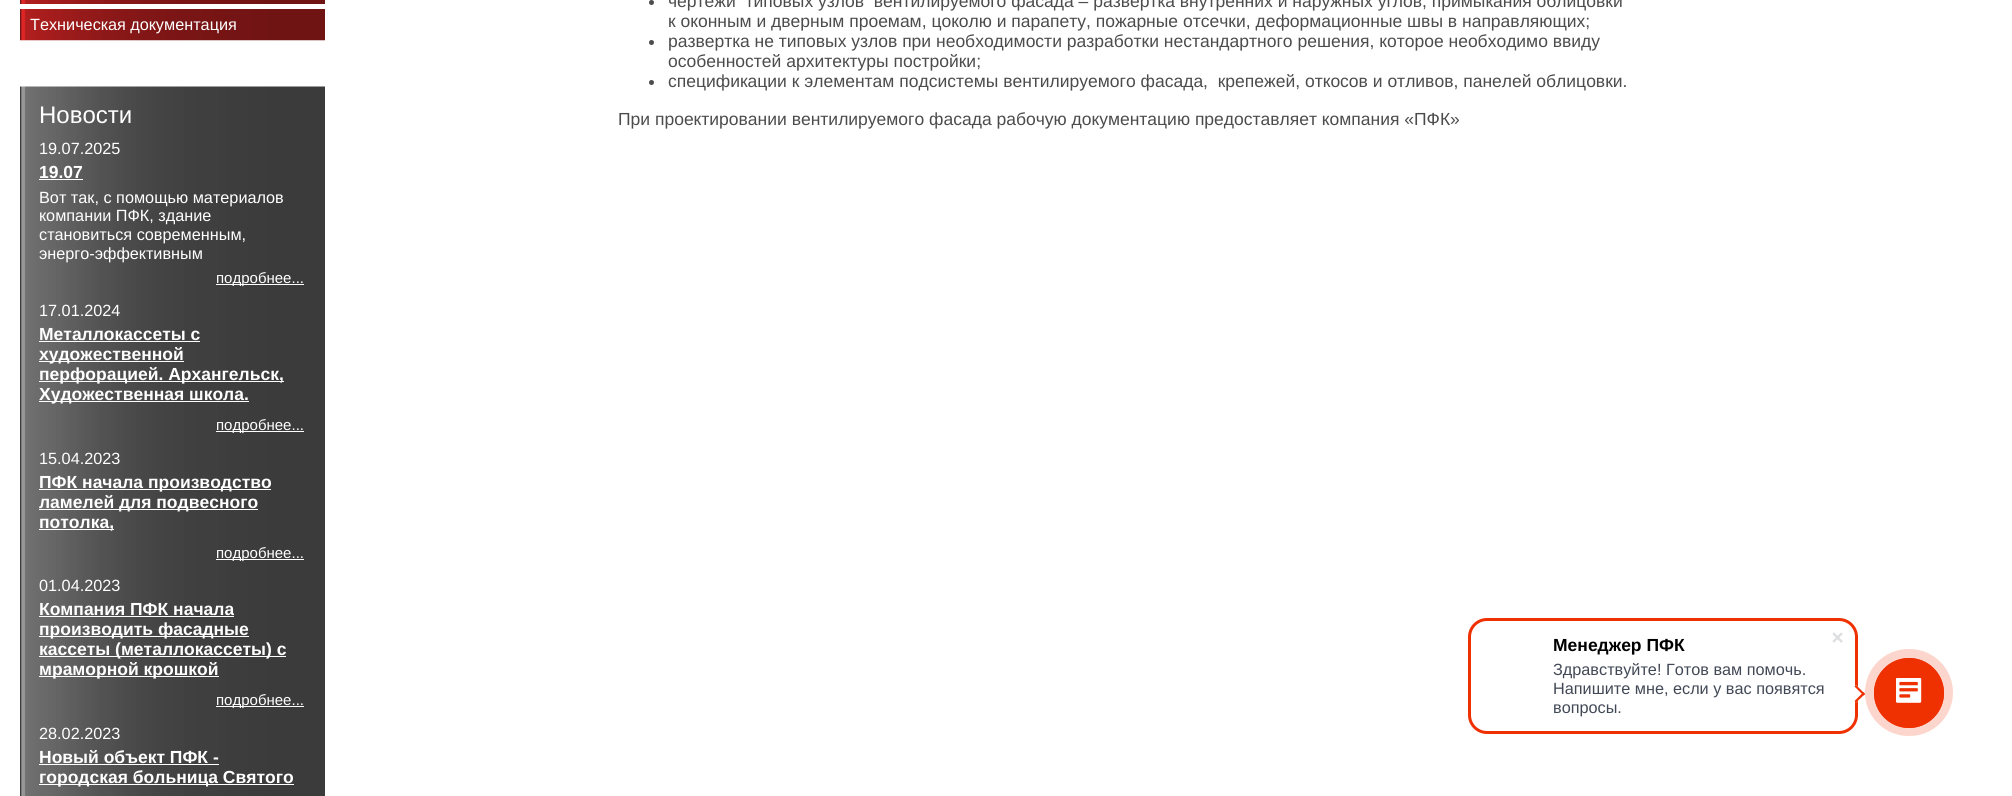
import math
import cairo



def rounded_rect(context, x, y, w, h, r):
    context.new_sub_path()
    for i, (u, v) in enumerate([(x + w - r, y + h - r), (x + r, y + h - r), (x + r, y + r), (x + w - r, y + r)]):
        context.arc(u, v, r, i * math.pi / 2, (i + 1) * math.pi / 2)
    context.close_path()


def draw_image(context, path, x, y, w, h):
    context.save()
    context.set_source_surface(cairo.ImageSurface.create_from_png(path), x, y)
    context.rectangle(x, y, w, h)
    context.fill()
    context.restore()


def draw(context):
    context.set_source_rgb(1, 1, 1)
    context.paint()
    draw_image(context, "images/1.png", 20, 0, 305, 4)
    draw_image(context, "images/2.png", 20, 9, 305, 32)
    draw_image(context, "images/3.png", 20, 86, 305, 710)
    context.set_source_rgb(1, 1, 1)
    context.rectangle(39, 179, 44, 1)
    context.fill()
    context.rectangle(216, 284, 88, 1)
    context.fill()
    context.rectangle(39, 341, 161, 1)
    context.fill()
    context.rectangle(39, 361, 145, 1)
    context.fill()
    context.rectangle(39, 381, 245, 1)
    context.fill()
    context.rectangle(39, 401, 210, 1)
    context.fill()
    context.rectangle(216, 431, 88, 1)
    context.fill()
    context.rectangle(39, 489, 232, 1)
    context.fill()
    context.rectangle(39, 509, 219, 1)
    context.fill()
    context.rectangle(39, 529, 75, 1)
    context.fill()
    context.rectangle(216, 559, 88, 1)
    context.fill()
    context.rectangle(39, 616, 195, 1)
    context.fill()
    context.rectangle(39, 636, 210, 1)
    context.fill()
    context.rectangle(39, 656, 247, 1)
    context.fill()
    context.rectangle(39, 676, 180, 1)
    context.fill()
    context.rectangle(216, 706, 88, 1)
    context.fill()
    context.rectangle(39, 764, 180, 1)
    context.fill()
    context.rectangle(39, 784, 255, 1)
    context.fill()
    context.set_source_rgb(76 / 255, 76 / 255, 76 / 255)
    context.arc(651.5, 2.5, 2.5, 0, 2 * math.pi)
    context.fill()
    context.arc(651.5, 42.5, 2.5, 0, 2 * math.pi)
    context.fill()
    context.arc(651.5, 82.5, 2.5, 0, 2 * math.pi)
    context.fill()
    rounded_rect(context, 1469.5, 619.5, 387, 113, 17.5)
    context.set_source_rgb(239 / 255, 48 / 255, 0)
    context.set_line_width(3)
    context.stroke()
    draw_image(context, "images/4.png", 1832, 632, 11, 11)
    context.set_source_rgb(1, 1, 1)
    context.new_path()
    context.move_to(1847.5, 694)
    context.line_to(1856, 685)
    context.line_to(1865, 694)
    context.line_to(1856, 702.5)
    context.close_path()
    context.fill()
    context.set_source_rgb(239 / 255, 48 / 255, 0)
    context.new_path()
    context.move_to(1854.5, 686.5)
    context.line_to(1856, 685)
    context.line_to(1865, 694)
    context.line_to(1863.5, 695.5)
    context.close_path()
    context.fill()
    context.new_path()
    context.move_to(1854.5, 701)
    context.line_to(1863.5, 692)
    context.line_to(1865, 694)
    context.line_to(1856, 702.5)
    context.close_path()
    context.fill()
    context.set_source_rgb(252 / 255, 214 / 255, 204 / 255)
    rounded_rect(context, 1865, 649, 88, 87, 43.5)
    context.fill()
    context.arc(1909, 693, 34.5, 0, 2 * math.pi)
    context.set_source_rgb(239 / 255, 48 / 255, 0)
    context.set_line_width(1)
    context.stroke()
    context.arc(1909, 693, 35, 0, 2 * math.pi)
    context.fill()
    draw_image(context, "images/5.png", 1896, 678, 26, 25)
    context.select_font_face("Liberation Sans")
    context.set_font_size(16.25)
    context.set_source_rgb(1, 1, 1)
    context.move_to(30, 30)
    context.show_text("Техническая документация")
    context.set_font_size(24)
    context.move_to(39, 123)
    context.show_text("Новости")
    context.set_font_size(16.25)
    context.move_to(39, 154)
    context.show_text("19.07.2025")
    context.select_font_face("Liberation Sans", cairo.FontSlant.NORMAL, cairo.FontWeight.BOLD)
    context.set_font_size(17.5)
    context.move_to(39, 178)
    context.show_text("19.07")
    context.select_font_face("Liberation Sans")
    context.set_font_size(16.25)
    context.move_to(39, 203)
    context.show_text("Вот так, с помощью материалов")
    context.move_to(39, 221)
    context.show_text("компании ПФК, здание")
    context.move_to(39, 240)
    context.show_text("становиться современным,")
    context.move_to(39, 259)
    context.show_text("энерго-эффективным")
    context.set_font_size(15)
    context.move_to(216, 283)
    context.show_text("подробнее...")
    context.set_font_size(16.25)
    context.move_to(39, 316)
    context.show_text("17.01.2024")
    context.select_font_face("Liberation Sans", cairo.FontSlant.NORMAL, cairo.FontWeight.BOLD)
    context.set_font_size(17.5)
    context.move_to(39, 340)
    context.show_text("Металлокассеты с")
    context.move_to(39, 360)
    context.show_text("художественной")
    context.move_to(39, 380)
    context.show_text("перфорацией. Архангельск,")
    context.move_to(39, 400)
    context.show_text("Художественная школа.")
    context.select_font_face("Liberation Sans")
    context.set_font_size(15)
    context.move_to(216, 430)
    context.show_text("подробнее...")
    context.set_font_size(16.25)
    context.move_to(39, 464)
    context.show_text("15.04.2023")
    context.select_font_face("Liberation Sans", cairo.FontSlant.NORMAL, cairo.FontWeight.BOLD)
    context.set_font_size(17.5)
    context.move_to(39, 488)
    context.show_text("ПФК начала производство")
    context.move_to(39, 508)
    context.show_text("ламелей для подвесного")
    context.move_to(39, 528)
    context.show_text("потолка,")
    context.select_font_face("Liberation Sans")
    context.set_font_size(15)
    context.move_to(216, 558)
    context.show_text("подробнее...")
    context.set_font_size(16.25)
    context.move_to(39, 591)
    context.show_text("01.04.2023")
    context.select_font_face("Liberation Sans", cairo.FontSlant.NORMAL, cairo.FontWeight.BOLD)
    context.set_font_size(17.5)
    context.move_to(39, 615)
    context.show_text("Компания ПФК начала")
    context.move_to(39, 635)
    context.show_text("производить фасадные")
    context.move_to(39, 655)
    context.show_text("кассеты (металлокассеты) с")
    context.move_to(39, 675)
    context.show_text("мраморной крошкой")
    context.select_font_face("Liberation Sans")
    context.set_font_size(15)
    context.move_to(216, 705)
    context.show_text("подробнее...")
    context.set_font_size(16.25)
    context.move_to(39, 739)
    context.show_text("28.02.2023")
    context.select_font_face("Liberation Sans", cairo.FontSlant.NORMAL, cairo.FontWeight.BOLD)
    context.set_font_size(17.5)
    context.move_to(39, 763)
    context.show_text("Новый объект ПФК -")
    context.move_to(39, 783)
    context.show_text("городская больница Святого")
    context.select_font_face("Liberation Sans")
    context.set_source_rgb(76 / 255, 76 / 255, 76 / 255)
    context.move_to(668, 7)
    context.show_text("чертежи  типовых узлов  вентилируемого фасада – развертка внутренних и наружных углов, примыкания облицовки")
    context.move_to(668, 27)
    context.show_text("к оконным и дверным проемам, цоколю и парапету, пожарные отсечки, деформационные швы в направляющих;")
    context.move_to(668, 47)
    context.show_text("развертка не типовых узлов при необходимости разработки нестандартного решения, которое необходимо ввиду")
    context.move_to(668, 67)
    context.show_text("особенностей архитектуры постройки;")
    context.move_to(668, 87)
    context.show_text("спецификации к элементам подсистемы вентилируемого фасада,  крепежей, откосов и отливов, панелей облицовки.")
    context.move_to(618, 125)
    context.show_text("При проектировании вентилируемого фасада рабочую документацию предоставляет компания «ПФК»")
    context.select_font_face("Liberation Sans", cairo.FontSlant.NORMAL, cairo.FontWeight.BOLD)
    context.set_source_rgb(0, 0, 0)
    context.move_to(1553, 651)
    context.show_text("Менеджер ПФК")
    context.select_font_face("Liberation Sans")
    context.set_font_size(16.25)
    context.set_source_rgb(66 / 255, 73 / 255, 86 / 255)
    context.move_to(1553, 675)
    context.show_text("Здравствуйте! Готов вам помочь.")
    context.move_to(1553, 694)
    context.show_text("Напишите мне, если у вас появятся")
    context.move_to(1553, 713)
    context.show_text("вопросы.")


surface = cairo.ImageSurface(cairo.Format.RGB24, 2012, 796)
context = cairo.Context(surface)
options = cairo.FontOptions()
options.set_hint_metrics(cairo.HintMetrics.OFF)
options.set_hint_style(cairo.HintStyle.NONE)
context.set_font_options(options)
context.set_miter_limit(4)
draw(context)
surface.write_to_png("out.png")
